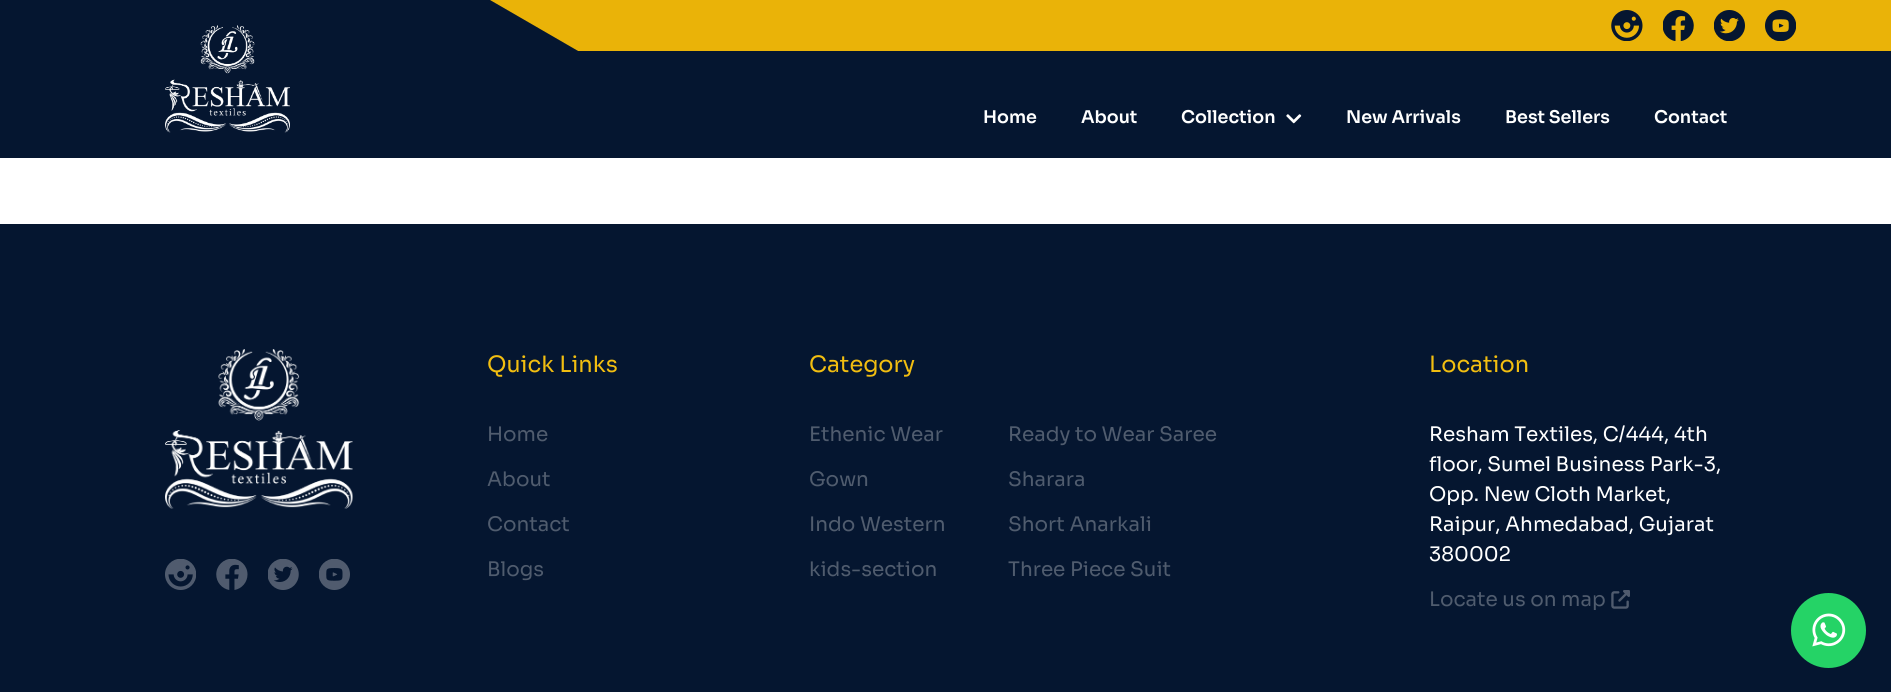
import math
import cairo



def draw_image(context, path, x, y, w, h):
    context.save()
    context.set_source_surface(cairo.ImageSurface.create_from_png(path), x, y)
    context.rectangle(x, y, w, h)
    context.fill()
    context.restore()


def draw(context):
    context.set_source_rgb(1, 1, 1)
    context.paint()
    context.set_source_rgb(5 / 255, 22 / 255, 48 / 255)
    context.rectangle(0, 0, 1891, 158)
    context.fill()
    context.set_source_rgb(234 / 255, 179 / 255, 8 / 255)
    context.rectangle(490, 0, 1401, 51)
    context.fill()
    context.set_source_rgb(5 / 255, 22 / 255, 48 / 255)
    context.new_path()
    context.move_to(365, 0)
    context.line_to(490, 0)
    context.line_to(706, 125)
    context.line_to(581, 125)
    context.close_path()
    context.fill()
    draw_image(context, "images/1.png", 1611, 10, 32, 31)
    draw_image(context, "images/2.png", 1663, 10, 31, 31)
    draw_image(context, "images/3.png", 1714, 10, 31, 31)
    draw_image(context, "images/4.png", 1765, 10, 31, 31)
    draw_image(context, "images/5.png", 165, 25, 125, 108)
    draw_image(context, "images/6.png", 1286, 114, 16, 10)
    context.rectangle(0, 224, 1891, 468)
    context.fill()
    draw_image(context, "images/7.png", 165, 349, 188, 160)
    draw_image(context, "images/8.png", 165, 559, 31, 31)
    draw_image(context, "images/9.png", 216, 559, 32, 31)
    draw_image(context, "images/10.png", 268, 559, 31, 31)
    draw_image(context, "images/11.png", 319, 559, 31, 31)
    draw_image(context, "images/12.png", 1611, 590, 19, 19)
    context.set_source_rgb(37 / 255, 211 / 255, 102 / 255)
    context.arc(1828.5, 630.5, 37.5, 0, 2 * math.pi)
    context.fill()
    draw_image(context, "images/13.png", 1812, 613, 34, 34)
    context.select_font_face("Sora SemiBold")
    context.set_font_size(17.5)
    context.set_source_rgb(1, 1, 1)
    context.move_to(983, 123)
    context.show_text("Home")
    context.move_to(1081, 123)
    context.show_text("About")
    context.move_to(1181, 123)
    context.show_text("Collection")
    context.move_to(1346, 123)
    context.show_text("New Arrivals")
    context.move_to(1505, 123)
    context.show_text("Best Sellers")
    context.move_to(1654, 123)
    context.show_text("Contact")
    context.select_font_face("Sora")
    context.set_font_size(22.5)
    context.set_source_rgb(242 / 255, 190 / 255, 16 / 255)
    context.move_to(487, 372)
    context.show_text("Quick Links")
    context.set_font_size(20)
    context.set_source_rgb(80 / 255, 92 / 255, 110 / 255)
    context.move_to(487, 441)
    context.show_text("Home")
    context.move_to(487, 486)
    context.show_text("About")
    context.move_to(487, 531)
    context.show_text("Contact")
    context.move_to(487, 576)
    context.show_text("Blogs")
    context.set_font_size(22.5)
    context.set_source_rgb(242 / 255, 190 / 255, 16 / 255)
    context.move_to(809, 372)
    context.show_text("Category")
    context.set_font_size(20)
    context.set_source_rgb(80 / 255, 92 / 255, 110 / 255)
    context.move_to(809, 441)
    context.show_text("Ethenic Wear")
    context.move_to(809, 486)
    context.show_text("Gown")
    context.move_to(809, 531)
    context.show_text("Indo Western")
    context.move_to(809, 576)
    context.show_text("kids-section")
    context.move_to(1008, 441)
    context.show_text("Ready to Wear Saree")
    context.move_to(1008, 486)
    context.show_text("Sharara")
    context.move_to(1008, 531)
    context.show_text("Short Anarkali")
    context.move_to(1008, 576)
    context.show_text("Three Piece Suit")
    context.set_font_size(22.5)
    context.set_source_rgb(242 / 255, 190 / 255, 16 / 255)
    context.move_to(1429, 372)
    context.show_text("Location")
    context.set_font_size(20)
    context.set_source_rgb(1, 1, 1)
    context.move_to(1429, 441)
    context.show_text("Resham Textiles, C/444, 4th")
    context.move_to(1429, 471)
    context.show_text("floor, Sumel Business Park-3,")
    context.move_to(1429, 501)
    context.show_text("Opp. New Cloth Market,")
    context.move_to(1429, 531)
    context.show_text("Raipur, Ahmedabad, Gujarat")
    context.move_to(1429, 561)
    context.show_text("380002")
    context.set_source_rgb(80 / 255, 92 / 255, 110 / 255)
    context.move_to(1429, 606)
    context.show_text("Locate us on map")


surface = cairo.ImageSurface(cairo.Format.RGB24, 1891, 692)
context = cairo.Context(surface)
options = cairo.FontOptions()
options.set_hint_metrics(cairo.HintMetrics.OFF)
options.set_hint_style(cairo.HintStyle.NONE)
context.set_font_options(options)
context.set_miter_limit(4)
draw(context)
surface.write_to_png("out.png")
